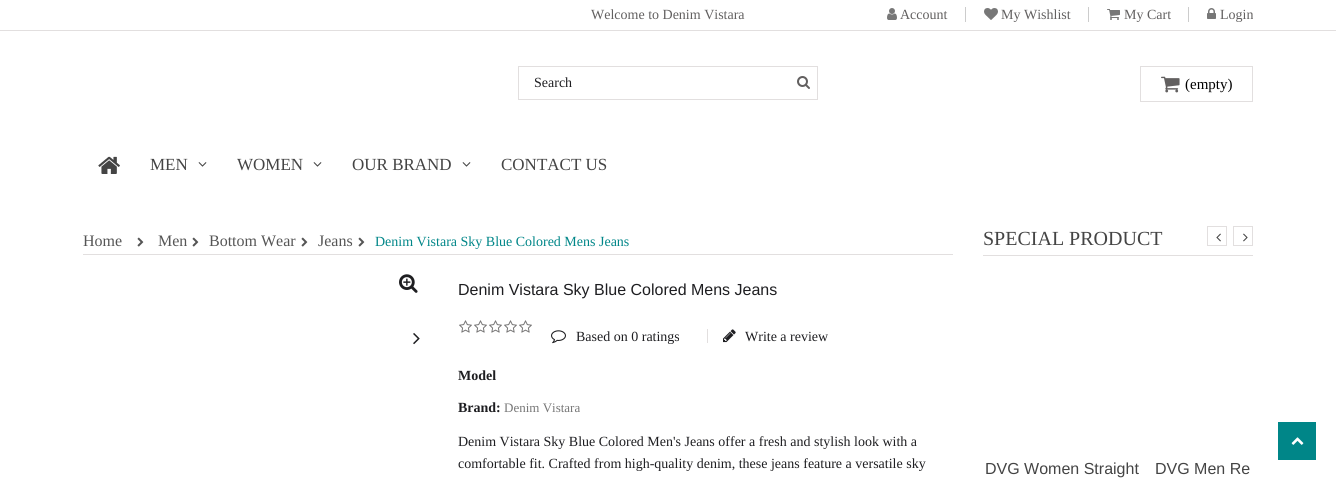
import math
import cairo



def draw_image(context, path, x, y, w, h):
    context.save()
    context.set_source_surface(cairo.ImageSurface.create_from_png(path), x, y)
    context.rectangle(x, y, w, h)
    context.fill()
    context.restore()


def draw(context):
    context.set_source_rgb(1, 1, 1)
    context.paint()
    context.set_source_rgb(226 / 255, 223 / 255, 223 / 255)
    context.rectangle(0, 30, 1336, 1)
    context.fill()
    draw_image(context, "images/1.png", 887, 8, 10, 12)
    context.set_source_rgb(204 / 255, 204 / 255, 204 / 255)
    context.rectangle(965, 7, 1, 15)
    context.fill()
    draw_image(context, "images/2.png", 984, 8, 14, 12)
    context.rectangle(1088, 7, 1, 15)
    context.fill()
    draw_image(context, "images/3.png", 1107, 9, 13, 11)
    context.rectangle(1188, 7, 1, 15)
    context.fill()
    draw_image(context, "images/4.png", 1207, 8, 9, 11)
    context.rectangle(518.5, 66.5, 299, 33)
    context.set_source_rgb(226 / 255, 223 / 255, 223 / 255)
    context.set_line_width(1)
    context.stroke()
    draw_image(context, "images/5.png", 797, 76, 13, 13)
    context.rectangle(1140.5, 66.5, 112, 35)
    context.stroke()
    draw_image(context, "images/6.png", 1161, 76, 19, 17)
    draw_image(context, "images/7.png", 98, 156, 22, 18)
    draw_image(context, "images/8.png", 198, 162, 9, 5)
    draw_image(context, "images/8.png", 313, 162, 9, 5)
    draw_image(context, "images/8.png", 462, 162, 9, 5)
    context.rectangle(83, 254, 870, 1)
    context.fill()
    draw_image(context, "images/9.png", 137, 237, 7, 10)
    draw_image(context, "images/9.png", 192, 237, 7, 10)
    draw_image(context, "images/9.png", 301, 237, 7, 10)
    draw_image(context, "images/9.png", 358, 237, 7, 10)
    draw_image(context, "images/10.png", 399, 274, 19, 19)
    draw_image(context, "images/11.png", 413, 333, 7, 12)
    draw_image(context, "images/12.png", 459, 320, 13, 13)
    draw_image(context, "images/12.png", 474, 320, 13, 13)
    draw_image(context, "images/12.png", 489, 320, 13, 13)
    draw_image(context, "images/12.png", 504, 320, 13, 13)
    draw_image(context, "images/12.png", 519, 320, 13, 13)
    draw_image(context, "images/13.png", 551, 330, 15, 14)
    context.rectangle(707, 329, 1, 14)
    context.fill()
    draw_image(context, "images/14.png", 723, 329, 13, 14)
    context.rectangle(983, 255, 270, 1)
    context.fill()
    context.rectangle(1207.5, 226.5, 19, 19)
    context.stroke()
    draw_image(context, "images/15.png", 1216, 233, 5, 9)
    context.rectangle(1233.5, 226.5, 19, 19)
    context.stroke()
    draw_image(context, "images/16.png", 1243, 233, 5, 9)
    context.set_source_rgb(0, 134 / 255, 136 / 255)
    context.rectangle(1278, 422, 38, 38)
    context.fill()
    draw_image(context, "images/17.png", 1291, 437, 13, 8)
    context.select_font_face("Liberation Serif")
    context.set_font_size(14)
    context.set_source_rgb(98 / 255, 96 / 255, 96 / 255)
    context.move_to(591, 19)
    context.show_text("Welcome to Denim Vistara")
    context.move_to(900, 19)
    context.show_text("Account")
    context.move_to(1001, 19)
    context.show_text("My Wishlist")
    context.move_to(1124, 19)
    context.show_text("My Cart")
    context.move_to(1220, 19)
    context.show_text("Login")
    context.set_source_rgb(30 / 255, 30 / 255, 33 / 255)
    context.move_to(534, 87)
    context.show_text("Search")
    context.set_font_size(15)
    context.set_source_rgb(0, 0, 0)
    context.move_to(1185, 89)
    context.show_text("(empty)")
    context.set_font_size(17)
    context.set_source_rgb(68 / 255, 68 / 255, 68 / 255)
    context.move_to(150, 170)
    context.show_text("MEN")
    context.move_to(237, 170)
    context.show_text("WOMEN")
    context.move_to(352, 170)
    context.show_text("OUR BRAND")
    context.move_to(501, 170)
    context.show_text("CONTACT US")
    context.set_font_size(16)
    context.set_source_rgb(85 / 255, 85 / 255, 85 / 255)
    context.move_to(83, 246)
    context.show_text("Home")
    context.move_to(158, 246)
    context.show_text("Men")
    context.move_to(209, 246)
    context.show_text("Bottom Wear")
    context.move_to(318, 246)
    context.show_text("Jeans")
    context.set_font_size(14)
    context.set_source_rgb(0, 134 / 255, 136 / 255)
    context.move_to(375, 246)
    context.show_text("Denim Vistara Sky Blue Colored Mens Jeans")
    context.select_font_face("Liberation Sans")
    context.set_font_size(16)
    context.set_source_rgb(30 / 255, 30 / 255, 33 / 255)
    context.move_to(458, 295)
    context.show_text("Denim Vistara Sky Blue Colored Mens Jeans")
    context.select_font_face("Liberation Serif")
    context.set_font_size(14)
    context.move_to(576, 341)
    context.show_text("Based on 0 ratings")
    context.move_to(745, 341)
    context.show_text("Write a review")
    context.select_font_face("Liberation Serif", cairo.FontSlant.NORMAL, cairo.FontWeight.BOLD)
    context.move_to(458, 380)
    context.show_text("Model")
    context.move_to(458, 412)
    context.show_text("Brand:")
    context.select_font_face("Liberation Serif")
    context.set_font_size(13)
    context.set_source_rgb(119 / 255, 119 / 255, 119 / 255)
    context.move_to(504, 412)
    context.show_text("Denim Vistara")
    context.set_font_size(14)
    context.set_source_rgb(30 / 255, 30 / 255, 33 / 255)
    context.move_to(458, 446)
    context.show_text("Denim Vistara Sky Blue Colored Men's Jeans offer a fresh and stylish look with a")
    context.move_to(458, 468)
    context.show_text("comfortable fit. Crafted from high-quality denim, these jeans feature a versatile sky")
    context.set_font_size(20)
    context.set_source_rgb(68 / 255, 68 / 255, 68 / 255)
    context.move_to(983, 245)
    context.show_text("SPECIAL PRODUCT")
    context.select_font_face("Liberation Sans")
    context.set_font_size(16)
    context.move_to(985, 474)
    context.show_text("DVG Women Straight")
    context.move_to(1155, 474)
    context.show_text("DVG Men Re")


surface = cairo.ImageSurface(cairo.Format.RGB24, 1336, 480)
context = cairo.Context(surface)
options = cairo.FontOptions()
options.set_hint_metrics(cairo.HintMetrics.OFF)
options.set_hint_style(cairo.HintStyle.NONE)
context.set_font_options(options)
context.set_miter_limit(4)
draw(context)
surface.write_to_png("out.png")
